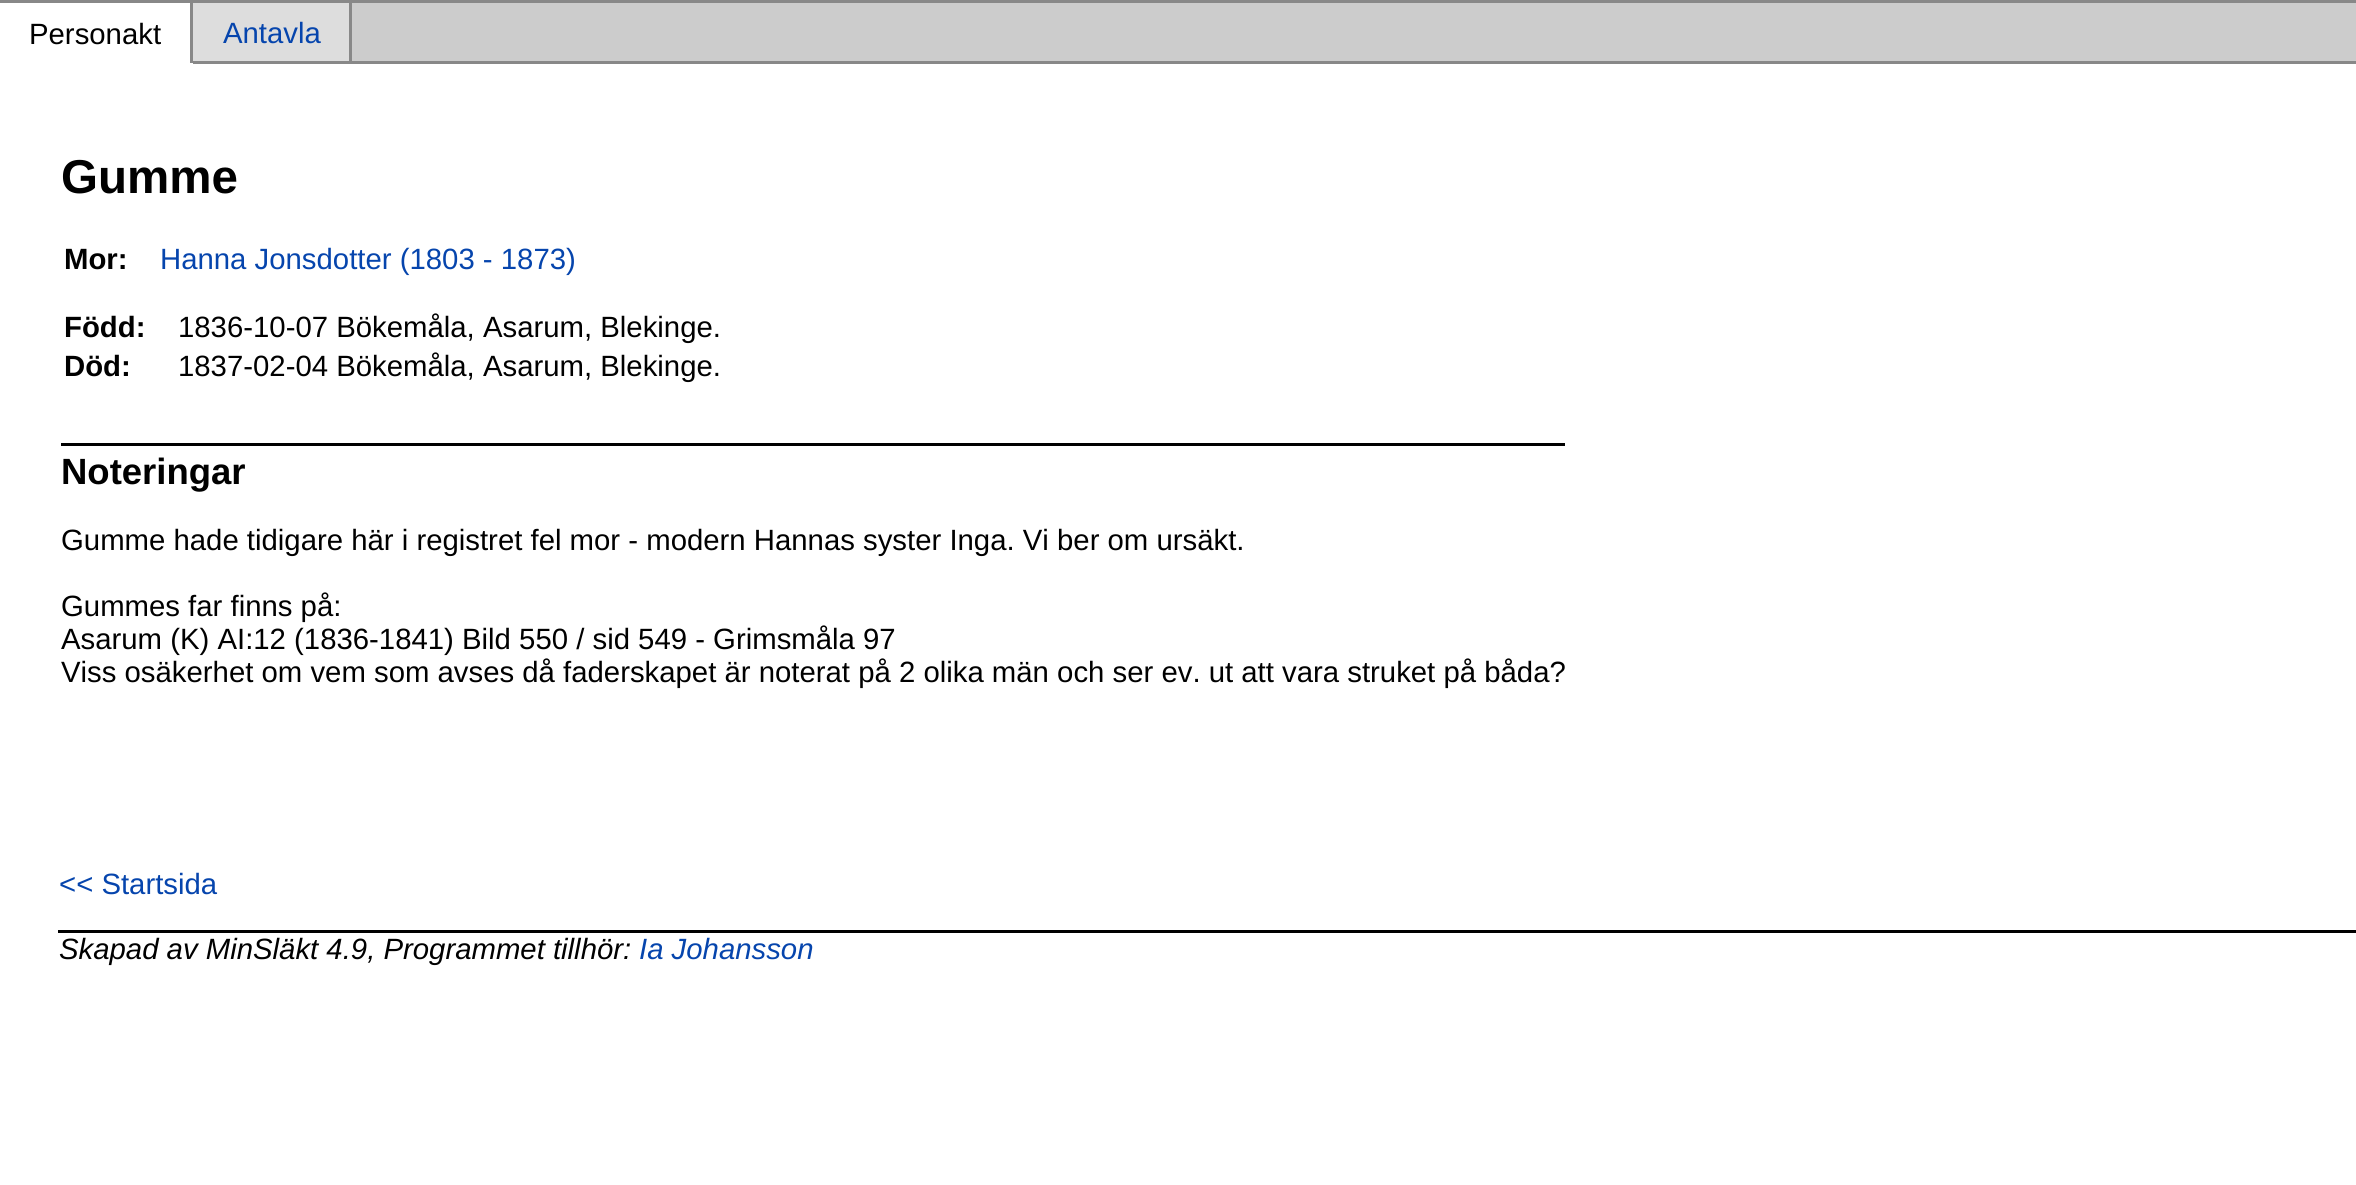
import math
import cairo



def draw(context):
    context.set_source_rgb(1, 1, 1)
    context.paint()
    context.set_source_rgb(136 / 255, 136 / 255, 136 / 255)
    context.rectangle(0, 0, 2356, 3)
    context.fill()
    context.rectangle(190, 0, 3, 63)
    context.fill()
    context.set_source_rgb(221 / 255, 221 / 255, 221 / 255)
    context.rectangle(193, 3, 156, 58)
    context.fill()
    context.set_source_rgb(136 / 255, 136 / 255, 136 / 255)
    context.rectangle(349, 0, 3, 63)
    context.fill()
    context.rectangle(193, 61, 2163, 3)
    context.fill()
    context.set_source_rgb(204 / 255, 204 / 255, 204 / 255)
    context.rectangle(352, 3, 2004, 58)
    context.fill()
    context.set_source_rgb(0, 0, 0)
    context.rectangle(61, 443, 1504, 3)
    context.fill()
    context.rectangle(58, 930, 2298, 3)
    context.fill()
    context.select_font_face("Liberation Sans")
    context.set_font_size(29.33)
    context.move_to(29, 44)
    context.show_text("Personakt")
    context.set_source_rgb(6 / 255, 69 / 255, 173 / 255)
    context.move_to(223, 43)
    context.show_text("Antavla")
    context.select_font_face("Liberation Sans", cairo.FontSlant.NORMAL, cairo.FontWeight.BOLD)
    context.set_font_size(47.5)
    context.set_source_rgb(0, 0, 0)
    context.move_to(61, 193)
    context.show_text("Gumme")
    context.set_font_size(29.33)
    context.move_to(64, 269)
    context.show_text("Mor:")
    context.select_font_face("Liberation Sans")
    context.set_source_rgb(6 / 255, 69 / 255, 173 / 255)
    context.move_to(160, 269)
    context.show_text("Hanna Jonsdotter (1803 - 1873)")
    context.select_font_face("Liberation Sans", cairo.FontSlant.NORMAL, cairo.FontWeight.BOLD)
    context.set_source_rgb(0, 0, 0)
    context.move_to(64, 337)
    context.show_text("Född:")
    context.select_font_face("Liberation Sans")
    context.move_to(178, 337)
    context.show_text("1836-10-07 Bökemåla, Asarum, Blekinge.")
    context.select_font_face("Liberation Sans", cairo.FontSlant.NORMAL, cairo.FontWeight.BOLD)
    context.move_to(64, 376)
    context.show_text("Död:")
    context.select_font_face("Liberation Sans")
    context.move_to(178, 376)
    context.show_text("1837-02-04 Bökemåla, Asarum, Blekinge.")
    context.select_font_face("Liberation Sans", cairo.FontSlant.NORMAL, cairo.FontWeight.BOLD)
    context.set_font_size(36.5)
    context.move_to(61, 484)
    context.show_text("Noteringar")
    context.select_font_face("Liberation Sans")
    context.set_font_size(29.33)
    context.move_to(61, 550)
    context.show_text("Gumme hade tidigare här i registret fel mor - modern Hannas syster Inga. Vi ber om ursäkt.")
    context.move_to(61, 616)
    context.show_text("Gummes far finns på:")
    context.move_to(61, 649)
    context.show_text("Asarum (K) AI:12 (1836-1841) Bild 550 / sid 549 - Grimsmåla 97")
    context.move_to(61, 682)
    context.show_text("Viss osäkerhet om vem som avses då faderskapet är noterat på 2 olika män och ser ev. ut att vara struket på båda?")
    context.set_source_rgb(6 / 255, 69 / 255, 173 / 255)
    context.move_to(59, 894)
    context.show_text("<< Startsida")
    context.select_font_face("Liberation Sans", cairo.FontSlant.ITALIC)
    context.set_source_rgb(0, 0, 0)
    context.move_to(59, 959)
    context.show_text("Skapad av MinSläkt 4.9, Programmet tillhör:")
    context.set_source_rgb(6 / 255, 69 / 255, 173 / 255)
    context.move_to(639, 959)
    context.show_text("Ia Johansson")


surface = cairo.ImageSurface(cairo.Format.RGB24, 2356, 1185)
context = cairo.Context(surface)
options = cairo.FontOptions()
options.set_hint_metrics(cairo.HintMetrics.OFF)
options.set_hint_style(cairo.HintStyle.NONE)
context.set_font_options(options)
context.set_miter_limit(4)
draw(context)
surface.write_to_png("out.png")
